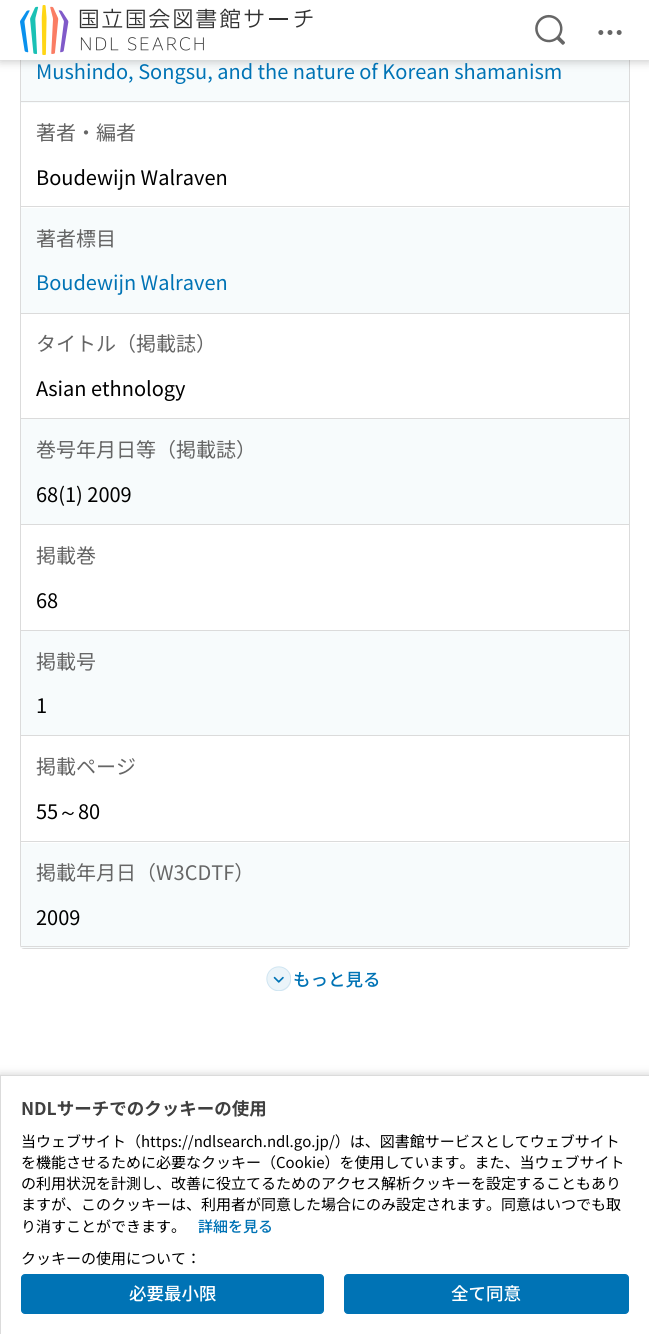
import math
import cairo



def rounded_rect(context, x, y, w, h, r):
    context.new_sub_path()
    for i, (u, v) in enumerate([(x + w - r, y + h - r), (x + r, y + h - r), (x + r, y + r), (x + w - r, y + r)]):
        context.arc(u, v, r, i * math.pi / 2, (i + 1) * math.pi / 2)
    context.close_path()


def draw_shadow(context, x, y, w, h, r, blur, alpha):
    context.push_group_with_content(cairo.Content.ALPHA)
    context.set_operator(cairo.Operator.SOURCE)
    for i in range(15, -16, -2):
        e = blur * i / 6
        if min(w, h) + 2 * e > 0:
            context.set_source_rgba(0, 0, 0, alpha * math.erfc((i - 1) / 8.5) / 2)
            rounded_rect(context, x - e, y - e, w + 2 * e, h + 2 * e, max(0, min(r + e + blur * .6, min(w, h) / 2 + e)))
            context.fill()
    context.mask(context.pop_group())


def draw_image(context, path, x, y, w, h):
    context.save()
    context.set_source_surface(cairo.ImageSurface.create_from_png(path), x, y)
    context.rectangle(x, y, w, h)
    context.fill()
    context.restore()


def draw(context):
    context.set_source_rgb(1, 1, 1)
    context.paint()
    rounded_rect(context, 20.5, -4.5, 609, 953, 3.5)
    context.set_source_rgb(219 / 255, 219 / 255, 219 / 255)
    context.set_line_width(1)
    context.stroke()
    context.set_source_rgb(247 / 255, 251 / 255, 252 / 255)
    context.rectangle(21, 60, 608, 43)
    context.fill()
    context.set_source_rgb(0, 0, 0)
    draw_shadow(context, 0, 1, 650, 60, 0, 5, 0.24)
    context.set_source_rgb(1, 1, 1)
    context.rectangle(0, 0, 649, 60)
    context.fill()
    draw_image(context, "images/1.png", 20, 5, 293, 50)
    draw_image(context, "images/2.png", 535, 14, 30, 31)
    draw_image(context, "images/3.png", 598, 30, 24, 5)
    context.set_source_rgb(219 / 255, 219 / 255, 219 / 255)
    context.rectangle(21, 101, 608, 1)
    context.fill()
    context.rectangle(21, 206, 608, 1)
    context.fill()
    context.set_source_rgb(247 / 255, 251 / 255, 252 / 255)
    context.rectangle(21, 208, 608, 105)
    context.fill()
    context.set_source_rgb(219 / 255, 219 / 255, 219 / 255)
    context.rectangle(21, 313, 608, 1)
    context.fill()
    context.rectangle(21, 418, 608, 1)
    context.fill()
    context.set_source_rgb(247 / 255, 251 / 255, 252 / 255)
    context.rectangle(21, 419, 608, 105)
    context.fill()
    context.set_source_rgb(219 / 255, 219 / 255, 219 / 255)
    context.rectangle(21, 524, 608, 1)
    context.fill()
    context.rectangle(21, 630, 608, 1)
    context.fill()
    context.set_source_rgb(247 / 255, 251 / 255, 252 / 255)
    context.rectangle(21, 631, 608, 104)
    context.fill()
    context.set_source_rgb(219 / 255, 219 / 255, 219 / 255)
    context.rectangle(21, 735, 608, 1)
    context.fill()
    context.rectangle(21, 841, 608, 1)
    context.fill()
    context.set_source_rgb(247 / 255, 251 / 255, 252 / 255)
    context.rectangle(21, 843, 608, 105)
    context.fill()
    context.set_source_rgb(219 / 255, 219 / 255, 219 / 255)
    context.rectangle(21, 946, 608, 1)
    context.fill()
    draw_image(context, "images/4.png", 266, 966, 25, 25)
    context.set_source_rgb(0, 0, 0)
    draw_shadow(context, 0, 1076, 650, 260, 0, 5, 0.24)
    context.set_source_rgb(1, 1, 1)
    context.rectangle(0.5, 1075.5, 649, 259)
    context.fill_preserve()
    context.set_source_rgb(219 / 255, 219 / 255, 219 / 255)
    context.stroke()
    context.set_source_rgb(0, 115 / 255, 181 / 255)
    rounded_rect(context, 21.5, 1274.5, 302, 39, 3.5)
    context.fill_preserve()
    context.stroke()
    rounded_rect(context, 344.5, 1274.5, 284, 39, 3.5)
    context.fill_preserve()
    context.stroke()
    context.select_font_face("Noto Sans JP")
    context.set_font_size(20)
    context.move_to(36, 79)
    context.show_text("Mushindo, Songsu, and the nature of Korean shamanism")
    context.set_source_rgb(102 / 255, 102 / 255, 102 / 255)
    context.move_to(36, 140)
    context.show_text("著者・編者")
    context.set_source_rgb(0, 0, 0)
    context.move_to(36, 185)
    context.show_text("Boudewijn Walraven")
    context.set_source_rgb(102 / 255, 102 / 255, 102 / 255)
    context.move_to(36, 246)
    context.show_text("著者標目")
    context.set_source_rgb(0, 115 / 255, 181 / 255)
    context.move_to(36, 290)
    context.show_text("Boudewijn Walraven")
    context.set_source_rgb(102 / 255, 102 / 255, 102 / 255)
    context.move_to(36, 351)
    context.show_text("タイトル（掲載誌）")
    context.set_source_rgb(0, 0, 0)
    context.move_to(36, 396)
    context.show_text("Asian ethnology")
    context.set_source_rgb(102 / 255, 102 / 255, 102 / 255)
    context.move_to(36, 457)
    context.show_text("巻号年月日等（掲載誌）")
    context.set_source_rgb(0, 0, 0)
    context.move_to(36, 502)
    context.show_text("68(1) 2009")
    context.set_source_rgb(102 / 255, 102 / 255, 102 / 255)
    context.move_to(36, 563)
    context.show_text("掲載巻")
    context.set_source_rgb(0, 0, 0)
    context.move_to(36, 608)
    context.show_text("68")
    context.set_source_rgb(102 / 255, 102 / 255, 102 / 255)
    context.move_to(36, 669)
    context.show_text("掲載号")
    context.set_source_rgb(0, 0, 0)
    context.move_to(36, 713)
    context.show_text("1")
    context.set_source_rgb(102 / 255, 102 / 255, 102 / 255)
    context.move_to(36, 774)
    context.show_text("掲載ページ")
    context.set_source_rgb(0, 0, 0)
    context.move_to(36, 819)
    context.show_text("55")
    context.select_font_face("WenQuanYi Zen Hei Medium")
    context.move_to(58, 819)
    context.show_text("～")
    context.select_font_face("Noto Sans JP")
    context.move_to(78, 819)
    context.show_text("80")
    context.set_source_rgb(102 / 255, 102 / 255, 102 / 255)
    context.move_to(36, 880)
    context.show_text("掲載年月日（W3CDTF）")
    context.set_source_rgb(0, 0, 0)
    context.move_to(36, 925)
    context.show_text("2009")
    context.select_font_face("Noto Sans JP Medium")
    context.set_font_size(17.5)
    context.set_source_rgb(0, 115 / 255, 181 / 255)
    context.move_to(293, 986)
    context.show_text("もっと見る")
    context.select_font_face("Noto Sans JP", cairo.FontSlant.NORMAL, cairo.FontWeight.BOLD)
    context.set_source_rgb(64 / 255, 64 / 255, 64 / 255)
    context.move_to(21, 1115)
    context.show_text("NDLサーチでのクッキーの使用")
    context.select_font_face("Noto Sans JP")
    context.set_font_size(15)
    context.set_source_rgb(0, 0, 0)
    context.move_to(21, 1147)
    context.show_text("当ウェブサイト（https://ndlsearch.ndl.go.jp/）は、図書館サービスとしてウェブサイト")
    context.move_to(21, 1168)
    context.show_text("を機能させるために必要なクッキー（Cookie）を使用しています。また、当ウェブサイト")
    context.move_to(21, 1189)
    context.show_text("の利用状況を計測し、改善に役立てるためのアクセス解析クッキーを設定することもあり")
    context.move_to(21, 1210)
    context.show_text("ますが、このクッキーは、利用者が同意した場合にのみ設定されます。同意はいつでも取")
    context.move_to(21, 1232)
    context.show_text("り消すことができます。")
    context.select_font_face("Noto Sans JP Medium")
    context.set_source_rgb(0, 115 / 255, 181 / 255)
    context.move_to(198, 1232)
    context.show_text("詳細を見る")
    context.select_font_face("Noto Sans JP")
    context.set_source_rgb(0, 0, 0)
    context.move_to(21, 1264)
    context.show_text("クッキーの使用について：")
    context.select_font_face("Noto Sans JP Medium")
    context.set_font_size(17.5)
    context.set_source_rgb(1, 1, 1)
    context.move_to(129, 1300)
    context.show_text("必要最小限")
    context.move_to(451, 1300)
    context.show_text("全て同意")


surface = cairo.ImageSurface(cairo.Format.RGB24, 649, 1334)
context = cairo.Context(surface)
options = cairo.FontOptions()
options.set_hint_metrics(cairo.HintMetrics.OFF)
options.set_hint_style(cairo.HintStyle.NONE)
context.set_font_options(options)
context.set_miter_limit(4)
draw(context)
surface.write_to_png("out.png")
